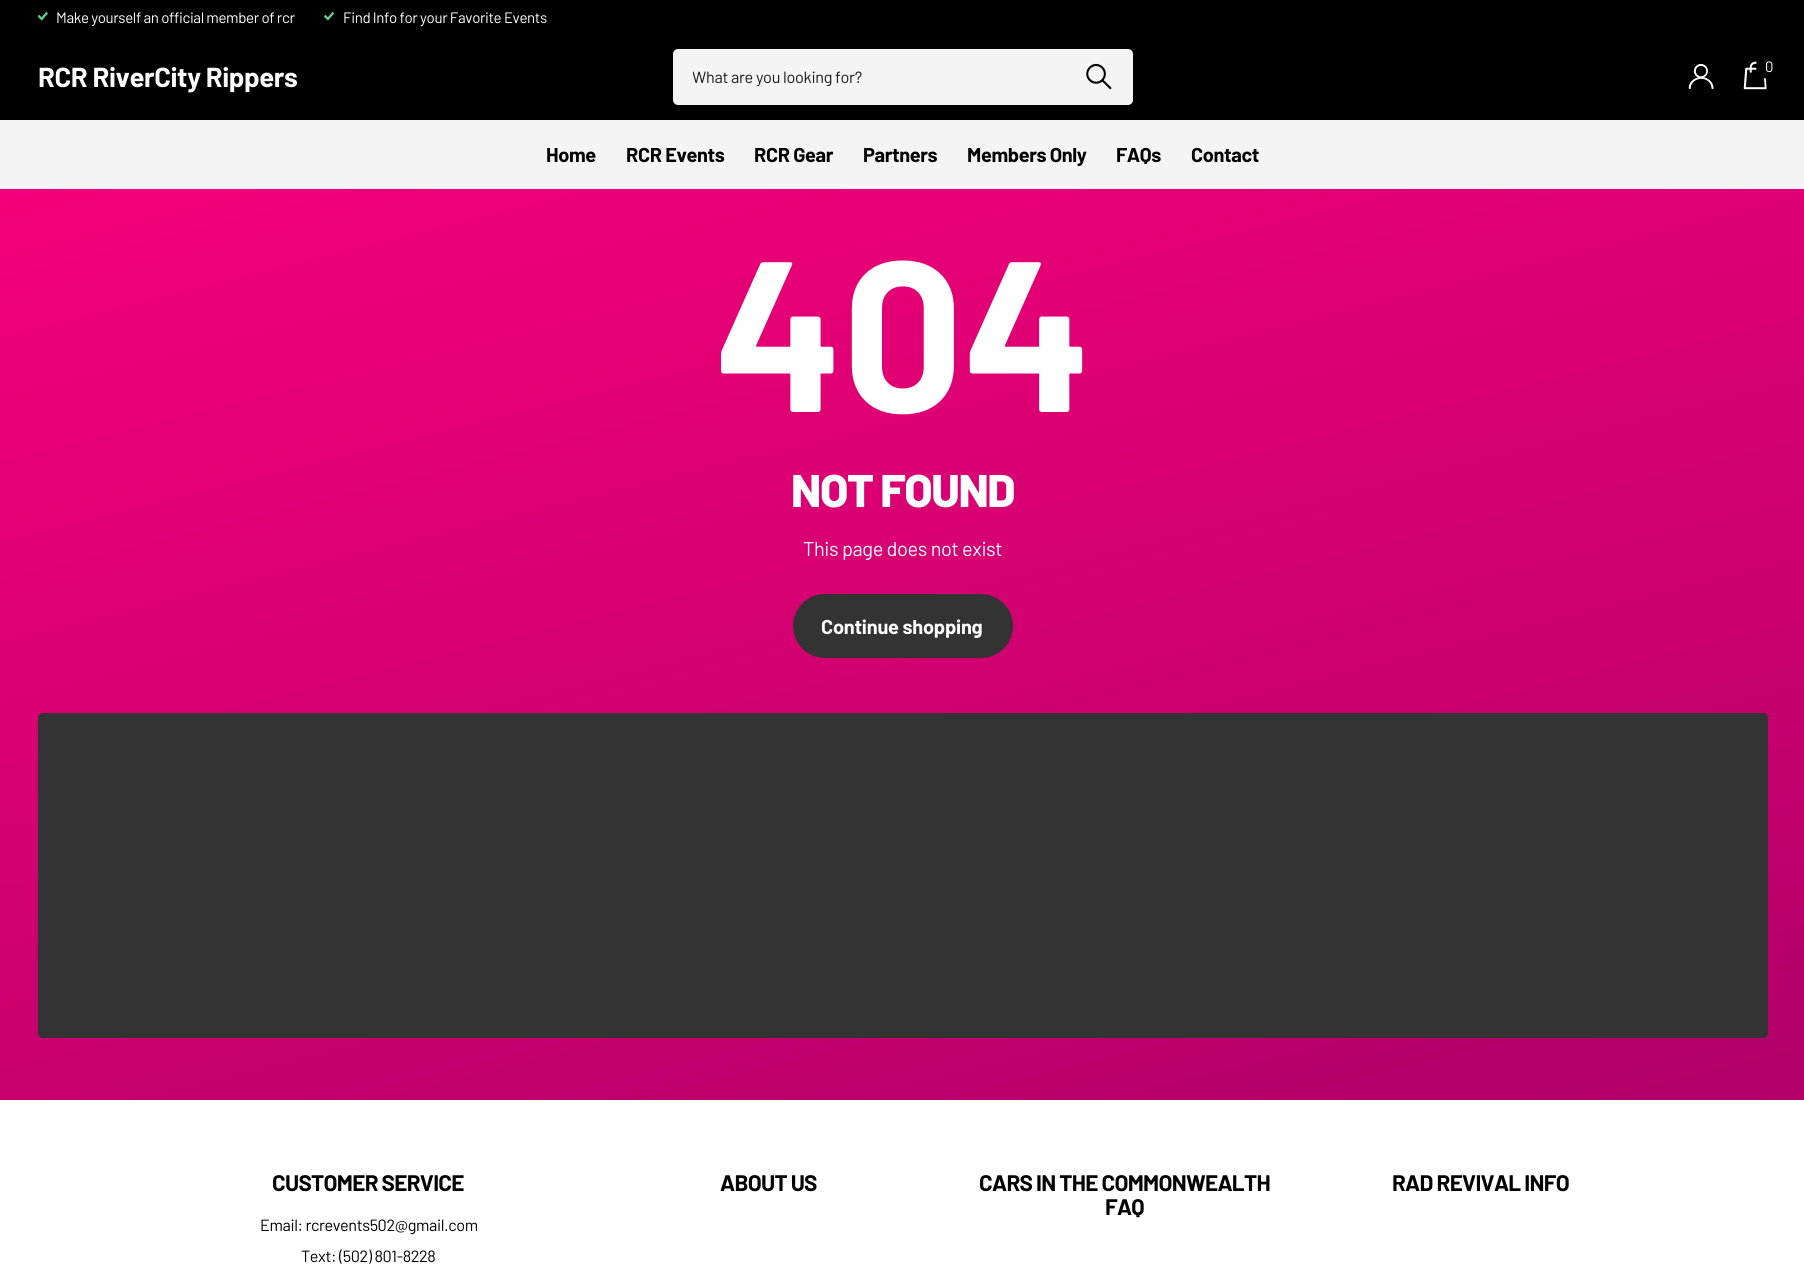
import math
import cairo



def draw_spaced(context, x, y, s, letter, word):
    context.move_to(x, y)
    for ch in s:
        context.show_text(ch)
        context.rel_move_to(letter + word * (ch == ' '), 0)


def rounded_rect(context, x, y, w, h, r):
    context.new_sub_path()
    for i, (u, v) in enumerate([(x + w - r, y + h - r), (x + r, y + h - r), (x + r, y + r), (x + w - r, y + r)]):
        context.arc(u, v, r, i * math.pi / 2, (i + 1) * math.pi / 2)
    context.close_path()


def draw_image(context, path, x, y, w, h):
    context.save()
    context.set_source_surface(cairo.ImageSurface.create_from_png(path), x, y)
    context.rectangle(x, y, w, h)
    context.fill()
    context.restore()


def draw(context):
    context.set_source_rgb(1, 1, 1)
    context.paint()
    context.set_source_rgb(0, 0, 0)
    context.rectangle(0, 0, 1804, 120)
    context.fill()
    draw_image(context, "images/1.png", 38, 12, 10, 9)
    draw_image(context, "images/2.png", 324, 12, 11, 9)
    context.set_source_rgb(244 / 255, 244 / 255, 244 / 255)
    rounded_rect(context, 673, 49, 460, 56, 5)
    context.fill()
    draw_image(context, "images/3.png", 1086, 63, 26, 27)
    draw_image(context, "images/4.png", 1688, 63, 26, 27)
    draw_image(context, "images/5.png", 1743, 61, 24, 29)
    context.set_source_rgb(0, 0, 0)
    rounded_rect(context, 1756, 53, 27, 26, 13)
    context.fill()
    context.set_source_rgb(244 / 255, 244 / 255, 244 / 255)
    context.rectangle(0, 120, 1804, 69)
    context.fill()
    gradient = cairo.LinearGradient(1123, 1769, 682, -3.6)
    gradient.add_color_stop_rgba(0.04, 156 / 255, 0, 98 / 255, 1)
    gradient.add_color_stop_rgba(1, 245 / 255, 0, 122 / 255, 1)
    context.set_source(gradient)
    context.rectangle(0, 189, 1804, 911)
    context.fill()
    context.set_source_rgb(51 / 255, 51 / 255, 51 / 255)
    rounded_rect(context, 793, 594, 220, 64, 32)
    context.fill()
    rounded_rect(context, 38, 713, 1730, 325, 5)
    context.fill()
    context.select_font_face("Barlow")
    context.set_font_size(15.1)
    context.set_source_rgb(1, 1, 1)
    draw_spaced(context, 56, 23, "Make yourself an official member of rcr", -0.4, 0)
    draw_spaced(context, 343, 23, "Find Info for your Favorite Events", -0.4, 0)
    context.select_font_face("Barlow", cairo.FontSlant.NORMAL, cairo.FontWeight.BOLD)
    context.set_font_size(27.5)
    draw_spaced(context, 38, 87, "RCR RiverCity Rippers", -0.4, 0)
    context.save()
    context.rectangle(693, 66, 370, 20)
    context.clip()
    context.select_font_face("Barlow")
    context.set_font_size(16.25)
    context.set_source_rgb(26 / 255, 26 / 255, 26 / 255)
    draw_spaced(context, 692, 83, "What are you looking for?", -0.3, 0)
    context.restore()
    context.select_font_face("Barlow")
    context.set_font_size(15)
    context.move_to(1765, 72)
    context.show_text("0")
    context.select_font_face("Barlow", cairo.FontSlant.NORMAL, cairo.FontWeight.BOLD)
    context.set_font_size(20)
    context.set_source_rgb(0, 0, 0)
    draw_spaced(context, 546, 162, "Home", -0.4, 0)
    draw_spaced(context, 626, 162, "RCR Events", -0.4, 0)
    draw_spaced(context, 754, 162, "RCR Gear", -0.4, 0)
    draw_spaced(context, 863, 162, "Partners", -0.4, 0)
    draw_spaced(context, 967, 162, "Members Only", -0.4, 0)
    draw_spaced(context, 1116, 162, "FAQs", -0.4, 0)
    draw_spaced(context, 1191, 162, "Contact", -0.4, 0)
    context.set_font_size(214)
    context.set_source_rgb(1, 1, 1)
    draw_spaced(context, 714, 412, "404", -1.4, 0)
    context.select_font_face("Barlow ExtraBold")
    context.set_font_size(45.75)
    draw_spaced(context, 791, 507, "NOT FOUND", -1.4, 0)
    context.select_font_face("Barlow")
    context.set_font_size(20)
    draw_spaced(context, 803, 556, "This page does not exist", -0.4, 0)
    context.select_font_face("Barlow", cairo.FontSlant.NORMAL, cairo.FontWeight.BOLD)
    draw_spaced(context, 821, 634, "Continue shopping", -0.25, 0)
    context.set_font_size(22.5)
    context.set_source_rgb(0, 0, 0)
    draw_spaced(context, 272, 1191, "CUSTOMER SERVICE", -0.7, 0)
    context.select_font_face("Barlow")
    context.set_font_size(16.25)
    draw_spaced(context, 260, 1231, "Email: rcrevents502@gmail.com", -0.4, 0)
    draw_spaced(context, 301, 1262, "Text: (502) 801-8228", -0.4, 0)
    context.select_font_face("Barlow", cairo.FontSlant.NORMAL, cairo.FontWeight.BOLD)
    context.set_font_size(22.5)
    draw_spaced(context, 720, 1191, "ABOUT US", -0.7, 0)
    draw_spaced(context, 979, 1191, "CARS IN THE COMMONWEALTH", -0.7, 0)
    draw_spaced(context, 1105, 1215, "FAQ", -0.7, 0)
    draw_spaced(context, 1392, 1191, "RAD REVIVAL INFO", -0.7, 0)


surface = cairo.ImageSurface(cairo.Format.RGB24, 1804, 1284)
context = cairo.Context(surface)
options = cairo.FontOptions()
options.set_hint_metrics(cairo.HintMetrics.OFF)
options.set_hint_style(cairo.HintStyle.NONE)
context.set_font_options(options)
context.set_miter_limit(4)
draw(context)
surface.write_to_png("out.png")
